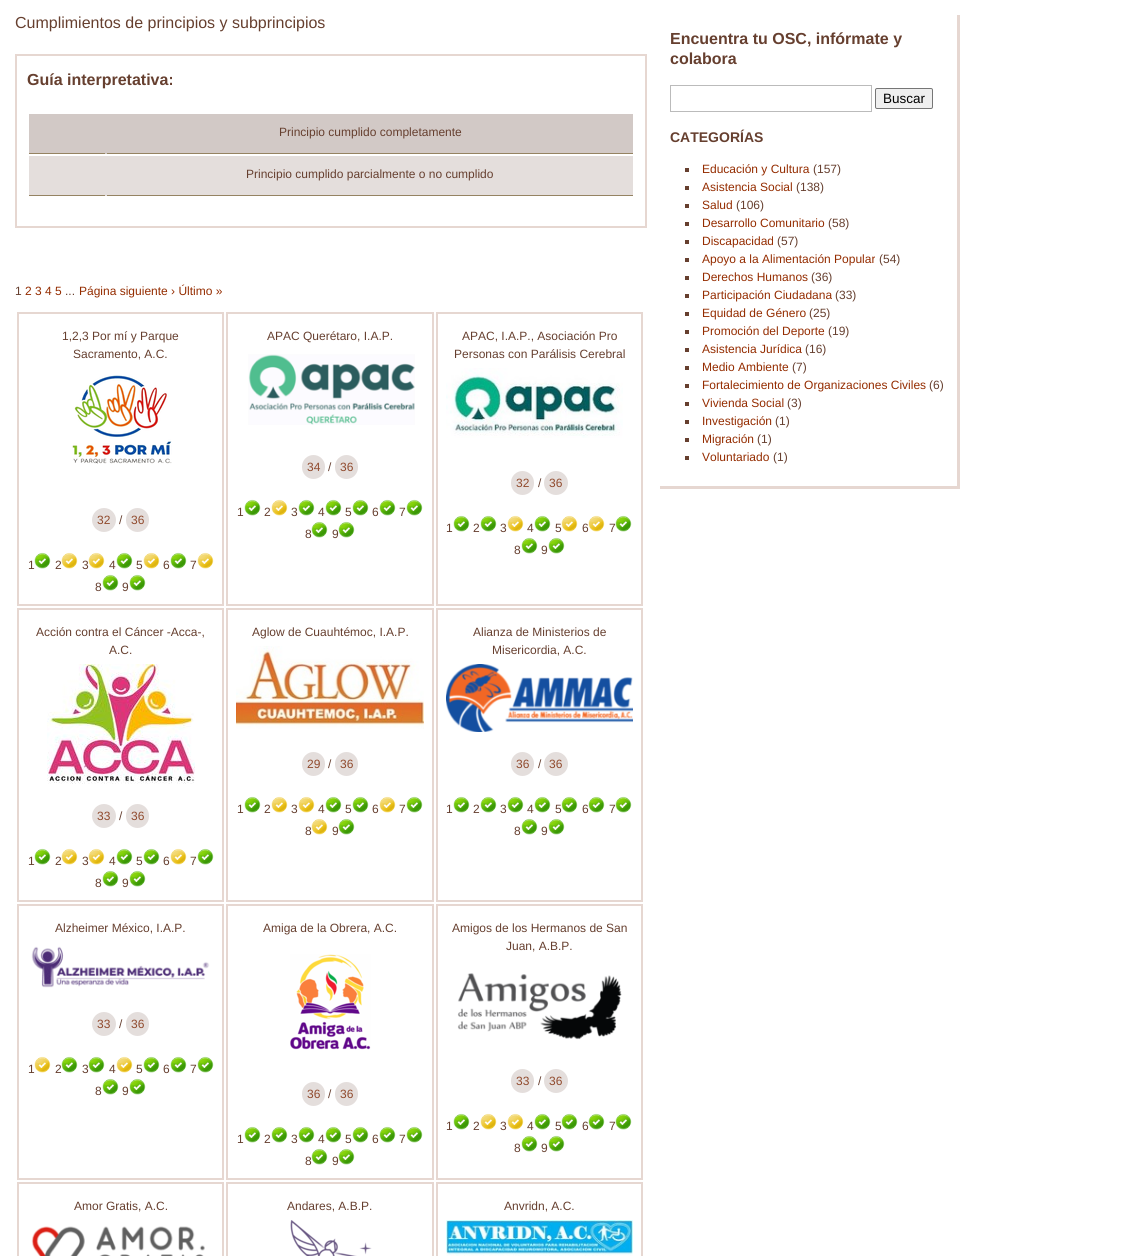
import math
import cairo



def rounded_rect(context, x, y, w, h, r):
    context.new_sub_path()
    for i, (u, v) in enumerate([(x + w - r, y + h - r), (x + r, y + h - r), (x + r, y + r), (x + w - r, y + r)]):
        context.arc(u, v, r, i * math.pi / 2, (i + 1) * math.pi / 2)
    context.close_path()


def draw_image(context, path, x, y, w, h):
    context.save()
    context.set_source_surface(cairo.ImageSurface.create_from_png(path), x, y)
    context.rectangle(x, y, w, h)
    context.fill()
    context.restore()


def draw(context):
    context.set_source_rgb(1, 1, 1)
    context.paint()
    context.rectangle(16, 55, 630, 172)
    context.set_source_rgb(230 / 255, 215 / 255, 209 / 255)
    context.stroke()
    context.set_source_rgb(210 / 255, 201 / 255, 198 / 255)
    context.rectangle(29, 114, 604, 40)
    context.fill()
    context.set_source_rgb(149 / 255, 131 / 255, 98 / 255)
    context.rectangle(107, 153, 526, 1)
    context.fill()
    context.rectangle(29, 153, 76, 1)
    context.fill()
    context.set_source_rgb(228 / 255, 222 / 255, 220 / 255)
    context.rectangle(29, 156, 604, 40)
    context.fill()
    context.set_source_rgb(149 / 255, 131 / 255, 98 / 255)
    context.rectangle(107, 195, 526, 1)
    context.fill()
    context.rectangle(29, 195, 76, 1)
    context.fill()
    context.rectangle(18, 313, 205, 292)
    context.set_source_rgb(230 / 255, 215 / 255, 209 / 255)
    context.stroke()
    draw_image(context, "images/1.png", 72, 375, 100, 89)
    context.set_source_rgb(228 / 255, 222 / 255, 220 / 255)
    context.arc(104, 520, 12, 0, 2 * math.pi)
    context.fill()
    rounded_rect(context, 126, 508, 23, 24, 11.5)
    context.fill()
    draw_image(context, "images/2.png", 34, 552, 17, 17)
    draw_image(context, "images/3.png", 61, 552, 17, 17)
    draw_image(context, "images/3.png", 88, 552, 17, 17)
    draw_image(context, "images/2.png", 116, 552, 17, 17)
    draw_image(context, "images/4.png", 143, 552, 17, 17)
    draw_image(context, "images/2.png", 170, 552, 17, 17)
    draw_image(context, "images/4.png", 197, 552, 17, 17)
    draw_image(context, "images/5.png", 102, 574, 17, 17)
    draw_image(context, "images/5.png", 129, 574, 17, 17)
    context.rectangle(227, 313, 206, 292)
    context.set_source_rgb(230 / 255, 215 / 255, 209 / 255)
    context.stroke()
    draw_image(context, "images/6.png", 248, 354, 167, 71)
    context.set_source_rgb(228 / 255, 222 / 255, 220 / 255)
    rounded_rect(context, 302, 455, 23, 24, 11.5)
    context.fill()
    rounded_rect(context, 335, 455, 23, 24, 11.5)
    context.fill()
    draw_image(context, "images/7.png", 244, 499, 17, 17)
    draw_image(context, "images/8.png", 271, 499, 17, 17)
    draw_image(context, "images/5.png", 298, 499, 17, 17)
    draw_image(context, "images/7.png", 325, 499, 17, 17)
    draw_image(context, "images/7.png", 352, 499, 17, 17)
    draw_image(context, "images/7.png", 379, 499, 17, 17)
    draw_image(context, "images/5.png", 406, 499, 17, 17)
    draw_image(context, "images/5.png", 311, 521, 17, 17)
    draw_image(context, "images/7.png", 338, 521, 17, 17)
    context.rectangle(437, 313, 205, 292)
    context.set_source_rgb(230 / 255, 215 / 255, 209 / 255)
    context.stroke()
    draw_image(context, "images/9.png", 446, 368, 177, 70)
    context.set_source_rgb(228 / 255, 222 / 255, 220 / 255)
    rounded_rect(context, 511, 471, 23, 24, 11.5)
    context.fill()
    context.arc(556, 483, 12, 0, 2 * math.pi)
    context.fill()
    draw_image(context, "images/7.png", 453, 515, 17, 17)
    draw_image(context, "images/7.png", 480, 515, 17, 17)
    draw_image(context, "images/8.png", 507, 515, 17, 17)
    draw_image(context, "images/5.png", 534, 515, 17, 17)
    draw_image(context, "images/10.png", 561, 515, 17, 17)
    draw_image(context, "images/8.png", 588, 515, 17, 17)
    draw_image(context, "images/5.png", 615, 515, 17, 17)
    draw_image(context, "images/5.png", 521, 537, 17, 17)
    draw_image(context, "images/5.png", 548, 537, 17, 17)
    context.rectangle(18, 609, 205, 292)
    context.set_source_rgb(230 / 255, 215 / 255, 209 / 255)
    context.stroke()
    draw_image(context, "images/11.png", 47, 664, 148, 120)
    context.set_source_rgb(228 / 255, 222 / 255, 220 / 255)
    context.arc(104, 816, 12, 0, 2 * math.pi)
    context.fill()
    rounded_rect(context, 126, 804, 23, 24, 11.5)
    context.fill()
    draw_image(context, "images/5.png", 34, 848, 17, 17)
    draw_image(context, "images/10.png", 61, 848, 17, 17)
    draw_image(context, "images/10.png", 88, 848, 17, 17)
    draw_image(context, "images/5.png", 116, 848, 17, 17)
    draw_image(context, "images/5.png", 143, 848, 17, 17)
    draw_image(context, "images/8.png", 170, 848, 17, 17)
    draw_image(context, "images/5.png", 197, 848, 17, 17)
    draw_image(context, "images/5.png", 102, 870, 17, 17)
    draw_image(context, "images/5.png", 129, 870, 17, 17)
    context.rectangle(227, 609, 206, 292)
    context.set_source_rgb(230 / 255, 215 / 255, 209 / 255)
    context.stroke()
    draw_image(context, "images/12.png", 236, 646, 188, 83)
    context.set_source_rgb(228 / 255, 222 / 255, 220 / 255)
    rounded_rect(context, 302, 752, 23, 24, 11.5)
    context.fill()
    rounded_rect(context, 335, 752, 23, 24, 11.5)
    context.fill()
    draw_image(context, "images/7.png", 244, 796, 17, 17)
    draw_image(context, "images/8.png", 271, 796, 17, 17)
    draw_image(context, "images/8.png", 298, 796, 17, 17)
    draw_image(context, "images/7.png", 325, 796, 17, 17)
    draw_image(context, "images/7.png", 352, 796, 17, 17)
    draw_image(context, "images/10.png", 379, 796, 17, 17)
    draw_image(context, "images/5.png", 406, 796, 17, 17)
    draw_image(context, "images/8.png", 311, 818, 17, 17)
    draw_image(context, "images/7.png", 338, 818, 17, 17)
    context.rectangle(437, 609, 205, 292)
    context.set_source_rgb(230 / 255, 215 / 255, 209 / 255)
    context.stroke()
    draw_image(context, "images/13.png", 446, 664, 187, 68)
    context.set_source_rgb(228 / 255, 222 / 255, 220 / 255)
    rounded_rect(context, 511, 752, 23, 24, 11.5)
    context.fill()
    context.arc(556, 764, 12, 0, 2 * math.pi)
    context.fill()
    draw_image(context, "images/7.png", 453, 796, 17, 17)
    draw_image(context, "images/7.png", 480, 796, 17, 17)
    draw_image(context, "images/5.png", 507, 796, 17, 17)
    draw_image(context, "images/5.png", 534, 796, 17, 17)
    draw_image(context, "images/7.png", 561, 796, 17, 17)
    draw_image(context, "images/5.png", 588, 796, 17, 17)
    draw_image(context, "images/5.png", 615, 796, 17, 17)
    draw_image(context, "images/5.png", 521, 818, 17, 17)
    draw_image(context, "images/5.png", 548, 818, 17, 17)
    context.rectangle(18, 905, 205, 274)
    context.set_source_rgb(230 / 255, 215 / 255, 209 / 255)
    context.stroke()
    draw_image(context, "images/14.png", 31, 946, 179, 42)
    context.set_source_rgb(228 / 255, 222 / 255, 220 / 255)
    context.arc(104, 1024, 12, 0, 2 * math.pi)
    context.fill()
    rounded_rect(context, 126, 1012, 23, 24, 11.5)
    context.fill()
    draw_image(context, "images/8.png", 34, 1056, 17, 17)
    draw_image(context, "images/7.png", 61, 1056, 17, 17)
    draw_image(context, "images/7.png", 88, 1056, 17, 17)
    draw_image(context, "images/8.png", 116, 1056, 17, 17)
    draw_image(context, "images/5.png", 143, 1056, 17, 17)
    draw_image(context, "images/5.png", 170, 1056, 17, 17)
    draw_image(context, "images/5.png", 197, 1056, 17, 17)
    draw_image(context, "images/5.png", 102, 1078, 17, 17)
    draw_image(context, "images/5.png", 129, 1078, 17, 17)
    context.rectangle(227, 905, 206, 274)
    context.set_source_rgb(230 / 255, 215 / 255, 209 / 255)
    context.stroke()
    draw_image(context, "images/15.png", 290, 954, 81, 96)
    context.set_source_rgb(228 / 255, 222 / 255, 220 / 255)
    rounded_rect(context, 302, 1082, 23, 24, 11.5)
    context.fill()
    rounded_rect(context, 335, 1082, 23, 24, 11.5)
    context.fill()
    draw_image(context, "images/7.png", 244, 1126, 17, 17)
    draw_image(context, "images/5.png", 271, 1126, 17, 17)
    draw_image(context, "images/5.png", 298, 1126, 17, 17)
    draw_image(context, "images/7.png", 325, 1126, 17, 17)
    draw_image(context, "images/7.png", 352, 1126, 17, 17)
    draw_image(context, "images/7.png", 379, 1126, 17, 17)
    draw_image(context, "images/5.png", 406, 1126, 17, 17)
    draw_image(context, "images/5.png", 311, 1148, 17, 17)
    draw_image(context, "images/7.png", 338, 1148, 17, 17)
    context.rectangle(437, 905, 205, 274)
    context.set_source_rgb(230 / 255, 215 / 255, 209 / 255)
    context.stroke()
    draw_image(context, "images/16.png", 457, 973, 165, 67)
    context.set_source_rgb(228 / 255, 222 / 255, 220 / 255)
    rounded_rect(context, 511, 1069, 23, 24, 11.5)
    context.fill()
    context.arc(556, 1081, 12, 0, 2 * math.pi)
    context.fill()
    draw_image(context, "images/7.png", 453, 1113, 17, 17)
    draw_image(context, "images/10.png", 480, 1113, 17, 17)
    draw_image(context, "images/8.png", 507, 1113, 17, 17)
    draw_image(context, "images/5.png", 534, 1113, 17, 17)
    draw_image(context, "images/7.png", 561, 1113, 17, 17)
    draw_image(context, "images/5.png", 588, 1113, 17, 17)
    draw_image(context, "images/5.png", 615, 1113, 17, 17)
    draw_image(context, "images/5.png", 521, 1135, 17, 17)
    draw_image(context, "images/5.png", 548, 1135, 17, 17)
    context.rectangle(18, 1183, 205, 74)
    context.set_source_rgb(230 / 255, 215 / 255, 209 / 255)
    context.stroke()
    draw_image(context, "images/17.png", 31, 1226, 174, 30)
    context.rectangle(227, 1183, 206, 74)
    context.stroke()
    draw_image(context, "images/18.png", 290, 1220, 82, 36)
    context.rectangle(437, 1183, 205, 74)
    context.stroke()
    draw_image(context, "images/19.png", 446, 1220, 187, 36)
    context.rectangle(957, 15, 3, 474)
    context.fill()
    context.rectangle(660, 486, 300, 3)
    context.fill()
    context.rectangle(670.5, 85.5, 201, 26)
    context.set_source_rgb(187 / 255, 187 / 255, 187 / 255)
    context.set_line_width(1)
    context.stroke()
    context.set_source_rgb(239 / 255, 239 / 255, 239 / 255)
    rounded_rect(context, 875.5, 88.5, 57, 20, 1.5)
    context.fill_preserve()
    context.set_source_rgb(118 / 255, 118 / 255, 118 / 255)
    context.stroke()
    context.set_source_rgb(102 / 255, 63 / 255, 47 / 255)
    context.rectangle(685, 168, 4, 4)
    context.fill()
    context.rectangle(685, 186, 4, 4)
    context.fill()
    context.rectangle(685, 204, 4, 4)
    context.fill()
    context.rectangle(685, 222, 4, 4)
    context.fill()
    context.rectangle(685, 240, 4, 4)
    context.fill()
    context.rectangle(685, 258, 4, 4)
    context.fill()
    context.rectangle(685, 276, 4, 4)
    context.fill()
    context.rectangle(685, 294, 4, 4)
    context.fill()
    context.rectangle(685, 312, 4, 4)
    context.fill()
    context.rectangle(685, 330, 4, 4)
    context.fill()
    context.rectangle(685, 348, 4, 4)
    context.fill()
    context.rectangle(685, 366, 4, 4)
    context.fill()
    context.rectangle(685, 384, 4, 4)
    context.fill()
    context.rectangle(685, 402, 4, 4)
    context.fill()
    context.rectangle(685, 420, 4, 4)
    context.fill()
    context.rectangle(685, 438, 4, 4)
    context.fill()
    context.rectangle(685, 456, 4, 4)
    context.fill()
    context.select_font_face("Liberation Sans")
    context.set_font_size(16)
    context.move_to(15, 28)
    context.show_text("Cumplimientos de principios y subprincipios")
    context.select_font_face("Liberation Sans", cairo.FontSlant.NORMAL, cairo.FontWeight.BOLD)
    context.move_to(27, 85)
    context.show_text("Guía interpretativa:")
    context.select_font_face("Liberation Sans")
    context.set_font_size(12)
    context.move_to(279, 136)
    context.show_text("Principio cumplido completamente")
    context.move_to(246, 178)
    context.show_text("Principio cumplido parcialmente o no cumplido")
    context.move_to(15, 295)
    context.show_text("1")
    context.set_source_rgb(148 / 255, 44 / 255, 0)
    context.move_to(25, 295)
    context.show_text("2 3 4 5")
    context.set_source_rgb(102 / 255, 63 / 255, 47 / 255)
    context.move_to(65, 295)
    context.show_text("...")
    context.set_source_rgb(148 / 255, 44 / 255, 0)
    context.move_to(79, 295)
    context.show_text("Página siguiente › Último »")
    context.set_source_rgb(102 / 255, 63 / 255, 47 / 255)
    context.move_to(62, 340)
    context.show_text("1,2,3 Por mí y Parque")
    context.move_to(73, 358)
    context.show_text("Sacramento, A.C.")
    context.set_source_rgb(144 / 255, 74 / 255, 45 / 255)
    context.move_to(97, 524)
    context.show_text("32")
    context.set_source_rgb(102 / 255, 63 / 255, 47 / 255)
    context.move_to(119, 524)
    context.show_text("/")
    context.set_source_rgb(144 / 255, 74 / 255, 45 / 255)
    context.move_to(131, 524)
    context.show_text("36")
    context.set_source_rgb(102 / 255, 63 / 255, 47 / 255)
    context.move_to(28, 569)
    context.show_text("1")
    context.move_to(55, 569)
    context.show_text("2")
    context.move_to(82, 569)
    context.show_text("3")
    context.move_to(109, 569)
    context.show_text("4")
    context.move_to(136, 569)
    context.show_text("5")
    context.move_to(163, 569)
    context.show_text("6")
    context.move_to(190, 569)
    context.show_text("7")
    context.move_to(95, 591)
    context.show_text("8")
    context.move_to(122, 591)
    context.show_text("9")
    context.move_to(267, 340)
    context.show_text("APAC Querétaro, I.A.P.")
    context.set_source_rgb(144 / 255, 74 / 255, 45 / 255)
    context.move_to(307, 471)
    context.show_text("34")
    context.set_source_rgb(102 / 255, 63 / 255, 47 / 255)
    context.move_to(328, 471)
    context.show_text("/")
    context.set_source_rgb(144 / 255, 74 / 255, 45 / 255)
    context.move_to(340, 471)
    context.show_text("36")
    context.set_source_rgb(102 / 255, 63 / 255, 47 / 255)
    context.move_to(237, 516)
    context.show_text("1")
    context.move_to(264, 516)
    context.show_text("2")
    context.move_to(291, 516)
    context.show_text("3")
    context.move_to(318, 516)
    context.show_text("4")
    context.move_to(345, 516)
    context.show_text("5")
    context.move_to(372, 516)
    context.show_text("6")
    context.move_to(399, 516)
    context.show_text("7")
    context.move_to(305, 538)
    context.show_text("8")
    context.move_to(332, 538)
    context.show_text("9")
    context.move_to(462, 340)
    context.show_text("APAC, I.A.P., Asociación Pro")
    context.move_to(454, 358)
    context.show_text("Personas con Parálisis Cerebral")
    context.set_source_rgb(144 / 255, 74 / 255, 45 / 255)
    context.move_to(516, 487)
    context.show_text("32")
    context.set_source_rgb(102 / 255, 63 / 255, 47 / 255)
    context.move_to(538, 487)
    context.show_text("/")
    context.set_source_rgb(144 / 255, 74 / 255, 45 / 255)
    context.move_to(549, 487)
    context.show_text("36")
    context.set_source_rgb(102 / 255, 63 / 255, 47 / 255)
    context.move_to(446, 532)
    context.show_text("1")
    context.move_to(473, 532)
    context.show_text("2")
    context.move_to(500, 532)
    context.show_text("3")
    context.move_to(527, 532)
    context.show_text("4")
    context.move_to(555, 532)
    context.show_text("5")
    context.move_to(582, 532)
    context.show_text("6")
    context.move_to(609, 532)
    context.show_text("7")
    context.move_to(514, 554)
    context.show_text("8")
    context.move_to(541, 554)
    context.show_text("9")
    context.move_to(36, 636)
    context.show_text("Acción contra el Cáncer -Acca-,")
    context.move_to(109, 654)
    context.show_text("A.C.")
    context.set_source_rgb(144 / 255, 74 / 255, 45 / 255)
    context.move_to(97, 820)
    context.show_text("33")
    context.set_source_rgb(102 / 255, 63 / 255, 47 / 255)
    context.move_to(119, 820)
    context.show_text("/")
    context.set_source_rgb(144 / 255, 74 / 255, 45 / 255)
    context.move_to(131, 820)
    context.show_text("36")
    context.set_source_rgb(102 / 255, 63 / 255, 47 / 255)
    context.move_to(28, 865)
    context.show_text("1")
    context.move_to(55, 865)
    context.show_text("2")
    context.move_to(82, 865)
    context.show_text("3")
    context.move_to(109, 865)
    context.show_text("4")
    context.move_to(136, 865)
    context.show_text("5")
    context.move_to(163, 865)
    context.show_text("6")
    context.move_to(190, 865)
    context.show_text("7")
    context.move_to(95, 887)
    context.show_text("8")
    context.move_to(122, 887)
    context.show_text("9")
    context.move_to(252, 636)
    context.show_text("Aglow de Cuauhtémoc, I.A.P.")
    context.set_source_rgb(144 / 255, 74 / 255, 45 / 255)
    context.move_to(307, 768)
    context.show_text("29")
    context.set_source_rgb(102 / 255, 63 / 255, 47 / 255)
    context.move_to(328, 768)
    context.show_text("/")
    context.set_source_rgb(144 / 255, 74 / 255, 45 / 255)
    context.move_to(340, 768)
    context.show_text("36")
    context.set_source_rgb(102 / 255, 63 / 255, 47 / 255)
    context.move_to(237, 813)
    context.show_text("1")
    context.move_to(264, 813)
    context.show_text("2")
    context.move_to(291, 813)
    context.show_text("3")
    context.move_to(318, 813)
    context.show_text("4")
    context.move_to(345, 813)
    context.show_text("5")
    context.move_to(372, 813)
    context.show_text("6")
    context.move_to(399, 813)
    context.show_text("7")
    context.move_to(305, 835)
    context.show_text("8")
    context.move_to(332, 835)
    context.show_text("9")
    context.move_to(473, 636)
    context.show_text("Alianza de Ministerios de")
    context.move_to(492, 654)
    context.show_text("Misericordia, A.C.")
    context.set_source_rgb(144 / 255, 74 / 255, 45 / 255)
    context.move_to(516, 768)
    context.show_text("36")
    context.set_source_rgb(102 / 255, 63 / 255, 47 / 255)
    context.move_to(538, 768)
    context.show_text("/")
    context.set_source_rgb(144 / 255, 74 / 255, 45 / 255)
    context.move_to(549, 768)
    context.show_text("36")
    context.set_source_rgb(102 / 255, 63 / 255, 47 / 255)
    context.move_to(446, 813)
    context.show_text("1")
    context.move_to(473, 813)
    context.show_text("2")
    context.move_to(500, 813)
    context.show_text("3")
    context.move_to(527, 813)
    context.show_text("4")
    context.move_to(555, 813)
    context.show_text("5")
    context.move_to(582, 813)
    context.show_text("6")
    context.move_to(609, 813)
    context.show_text("7")
    context.move_to(514, 835)
    context.show_text("8")
    context.move_to(541, 835)
    context.show_text("9")
    context.move_to(55, 932)
    context.show_text("Alzheimer México, I.A.P.")
    context.set_source_rgb(144 / 255, 74 / 255, 45 / 255)
    context.move_to(97, 1028)
    context.show_text("33")
    context.set_source_rgb(102 / 255, 63 / 255, 47 / 255)
    context.move_to(119, 1028)
    context.show_text("/")
    context.set_source_rgb(144 / 255, 74 / 255, 45 / 255)
    context.move_to(131, 1028)
    context.show_text("36")
    context.set_source_rgb(102 / 255, 63 / 255, 47 / 255)
    context.move_to(28, 1073)
    context.show_text("1")
    context.move_to(55, 1073)
    context.show_text("2")
    context.move_to(82, 1073)
    context.show_text("3")
    context.move_to(109, 1073)
    context.show_text("4")
    context.move_to(136, 1073)
    context.show_text("5")
    context.move_to(163, 1073)
    context.show_text("6")
    context.move_to(190, 1073)
    context.show_text("7")
    context.move_to(95, 1095)
    context.show_text("8")
    context.move_to(122, 1095)
    context.show_text("9")
    context.move_to(263, 932)
    context.show_text("Amiga de la Obrera, A.C.")
    context.set_source_rgb(144 / 255, 74 / 255, 45 / 255)
    context.move_to(307, 1098)
    context.show_text("36")
    context.set_source_rgb(102 / 255, 63 / 255, 47 / 255)
    context.move_to(328, 1098)
    context.show_text("/")
    context.set_source_rgb(144 / 255, 74 / 255, 45 / 255)
    context.move_to(340, 1098)
    context.show_text("36")
    context.set_source_rgb(102 / 255, 63 / 255, 47 / 255)
    context.move_to(237, 1143)
    context.show_text("1")
    context.move_to(264, 1143)
    context.show_text("2")
    context.move_to(291, 1143)
    context.show_text("3")
    context.move_to(318, 1143)
    context.show_text("4")
    context.move_to(345, 1143)
    context.show_text("5")
    context.move_to(372, 1143)
    context.show_text("6")
    context.move_to(399, 1143)
    context.show_text("7")
    context.move_to(305, 1165)
    context.show_text("8")
    context.move_to(332, 1165)
    context.show_text("9")
    context.move_to(452, 932)
    context.show_text("Amigos de los Hermanos de San")
    context.move_to(506, 950)
    context.show_text("Juan, A.B.P.")
    context.set_source_rgb(144 / 255, 74 / 255, 45 / 255)
    context.move_to(516, 1085)
    context.show_text("33")
    context.set_source_rgb(102 / 255, 63 / 255, 47 / 255)
    context.move_to(538, 1085)
    context.show_text("/")
    context.set_source_rgb(144 / 255, 74 / 255, 45 / 255)
    context.move_to(549, 1085)
    context.show_text("36")
    context.set_source_rgb(102 / 255, 63 / 255, 47 / 255)
    context.move_to(446, 1130)
    context.show_text("1")
    context.move_to(473, 1130)
    context.show_text("2")
    context.move_to(500, 1130)
    context.show_text("3")
    context.move_to(527, 1130)
    context.show_text("4")
    context.move_to(555, 1130)
    context.show_text("5")
    context.move_to(582, 1130)
    context.show_text("6")
    context.move_to(609, 1130)
    context.show_text("7")
    context.move_to(514, 1152)
    context.show_text("8")
    context.move_to(541, 1152)
    context.show_text("9")
    context.move_to(74, 1210)
    context.show_text("Amor Gratis, A.C.")
    context.move_to(287, 1210)
    context.show_text("Andares, A.B.P.")
    context.move_to(504, 1210)
    context.show_text("Anvridn, A.C.")
    context.select_font_face("Liberation Sans", cairo.FontSlant.NORMAL, cairo.FontWeight.BOLD)
    context.set_font_size(16)
    context.move_to(670, 44)
    context.show_text("Encuentra tu OSC, infórmate y")
    context.move_to(670, 64)
    context.show_text("colabora")
    context.select_font_face("Liberation Sans")
    context.set_font_size(13.5)
    context.set_source_rgb(0, 0, 0)
    context.move_to(883, 103)
    context.show_text("Buscar")
    context.select_font_face("Liberation Sans", cairo.FontSlant.NORMAL, cairo.FontWeight.BOLD)
    context.set_font_size(14)
    context.set_source_rgb(102 / 255, 63 / 255, 47 / 255)
    context.move_to(670, 142)
    context.show_text("CATEGORÍAS")
    context.select_font_face("Liberation Sans")
    context.set_font_size(12)
    context.set_source_rgb(148 / 255, 44 / 255, 0)
    context.move_to(702, 173)
    context.show_text("Educación y Cultura")
    context.set_source_rgb(102 / 255, 63 / 255, 47 / 255)
    context.move_to(813, 173)
    context.show_text("(157)")
    context.set_source_rgb(148 / 255, 44 / 255, 0)
    context.move_to(702, 191)
    context.show_text("Asistencia Social")
    context.set_source_rgb(102 / 255, 63 / 255, 47 / 255)
    context.move_to(796, 191)
    context.show_text("(138)")
    context.set_source_rgb(148 / 255, 44 / 255, 0)
    context.move_to(702, 209)
    context.show_text("Salud")
    context.set_source_rgb(102 / 255, 63 / 255, 47 / 255)
    context.move_to(736, 209)
    context.show_text("(106)")
    context.set_source_rgb(148 / 255, 44 / 255, 0)
    context.move_to(702, 227)
    context.show_text("Desarrollo Comunitario")
    context.set_source_rgb(102 / 255, 63 / 255, 47 / 255)
    context.move_to(828, 227)
    context.show_text("(58)")
    context.set_source_rgb(148 / 255, 44 / 255, 0)
    context.move_to(702, 245)
    context.show_text("Discapacidad")
    context.set_source_rgb(102 / 255, 63 / 255, 47 / 255)
    context.move_to(777, 245)
    context.show_text("(57)")
    context.set_source_rgb(148 / 255, 44 / 255, 0)
    context.move_to(702, 263)
    context.show_text("Apoyo a la Alimentación Popular")
    context.set_source_rgb(102 / 255, 63 / 255, 47 / 255)
    context.move_to(879, 263)
    context.show_text("(54)")
    context.set_source_rgb(148 / 255, 44 / 255, 0)
    context.move_to(702, 281)
    context.show_text("Derechos Humanos")
    context.set_source_rgb(102 / 255, 63 / 255, 47 / 255)
    context.move_to(811, 281)
    context.show_text("(36)")
    context.set_source_rgb(148 / 255, 44 / 255, 0)
    context.move_to(702, 299)
    context.show_text("Participación Ciudadana")
    context.set_source_rgb(102 / 255, 63 / 255, 47 / 255)
    context.move_to(835, 299)
    context.show_text("(33)")
    context.set_source_rgb(148 / 255, 44 / 255, 0)
    context.move_to(702, 317)
    context.show_text("Equidad de Género")
    context.set_source_rgb(102 / 255, 63 / 255, 47 / 255)
    context.move_to(809, 317)
    context.show_text("(25)")
    context.set_source_rgb(148 / 255, 44 / 255, 0)
    context.move_to(702, 335)
    context.show_text("Promoción del Deporte")
    context.set_source_rgb(102 / 255, 63 / 255, 47 / 255)
    context.move_to(828, 335)
    context.show_text("(19)")
    context.set_source_rgb(148 / 255, 44 / 255, 0)
    context.move_to(702, 353)
    context.show_text("Asistencia Jurídica")
    context.set_source_rgb(102 / 255, 63 / 255, 47 / 255)
    context.move_to(805, 353)
    context.show_text("(16)")
    context.set_source_rgb(148 / 255, 44 / 255, 0)
    context.move_to(702, 371)
    context.show_text("Medio Ambiente")
    context.set_source_rgb(102 / 255, 63 / 255, 47 / 255)
    context.move_to(792, 371)
    context.show_text("(7)")
    context.set_source_rgb(148 / 255, 44 / 255, 0)
    context.move_to(702, 389)
    context.show_text("Fortalecimiento de Organizaciones Civiles")
    context.set_source_rgb(102 / 255, 63 / 255, 47 / 255)
    context.move_to(929, 389)
    context.show_text("(6)")
    context.set_source_rgb(148 / 255, 44 / 255, 0)
    context.move_to(702, 407)
    context.show_text("Vivienda Social")
    context.set_source_rgb(102 / 255, 63 / 255, 47 / 255)
    context.move_to(787, 407)
    context.show_text("(3)")
    context.set_source_rgb(148 / 255, 44 / 255, 0)
    context.move_to(702, 425)
    context.show_text("Investigación")
    context.set_source_rgb(102 / 255, 63 / 255, 47 / 255)
    context.move_to(775, 425)
    context.show_text("(1)")
    context.set_source_rgb(148 / 255, 44 / 255, 0)
    context.move_to(702, 443)
    context.show_text("Migración")
    context.set_source_rgb(102 / 255, 63 / 255, 47 / 255)
    context.move_to(757, 443)
    context.show_text("(1)")
    context.set_source_rgb(148 / 255, 44 / 255, 0)
    context.move_to(702, 461)
    context.show_text("Voluntariado")
    context.set_source_rgb(102 / 255, 63 / 255, 47 / 255)
    context.move_to(773, 461)
    context.show_text("(1)")


surface = cairo.ImageSurface(cairo.Format.RGB24, 1122, 1256)
context = cairo.Context(surface)
options = cairo.FontOptions()
options.set_hint_metrics(cairo.HintMetrics.OFF)
options.set_hint_style(cairo.HintStyle.NONE)
context.set_font_options(options)
context.set_miter_limit(4)
draw(context)
surface.write_to_png("out.png")
